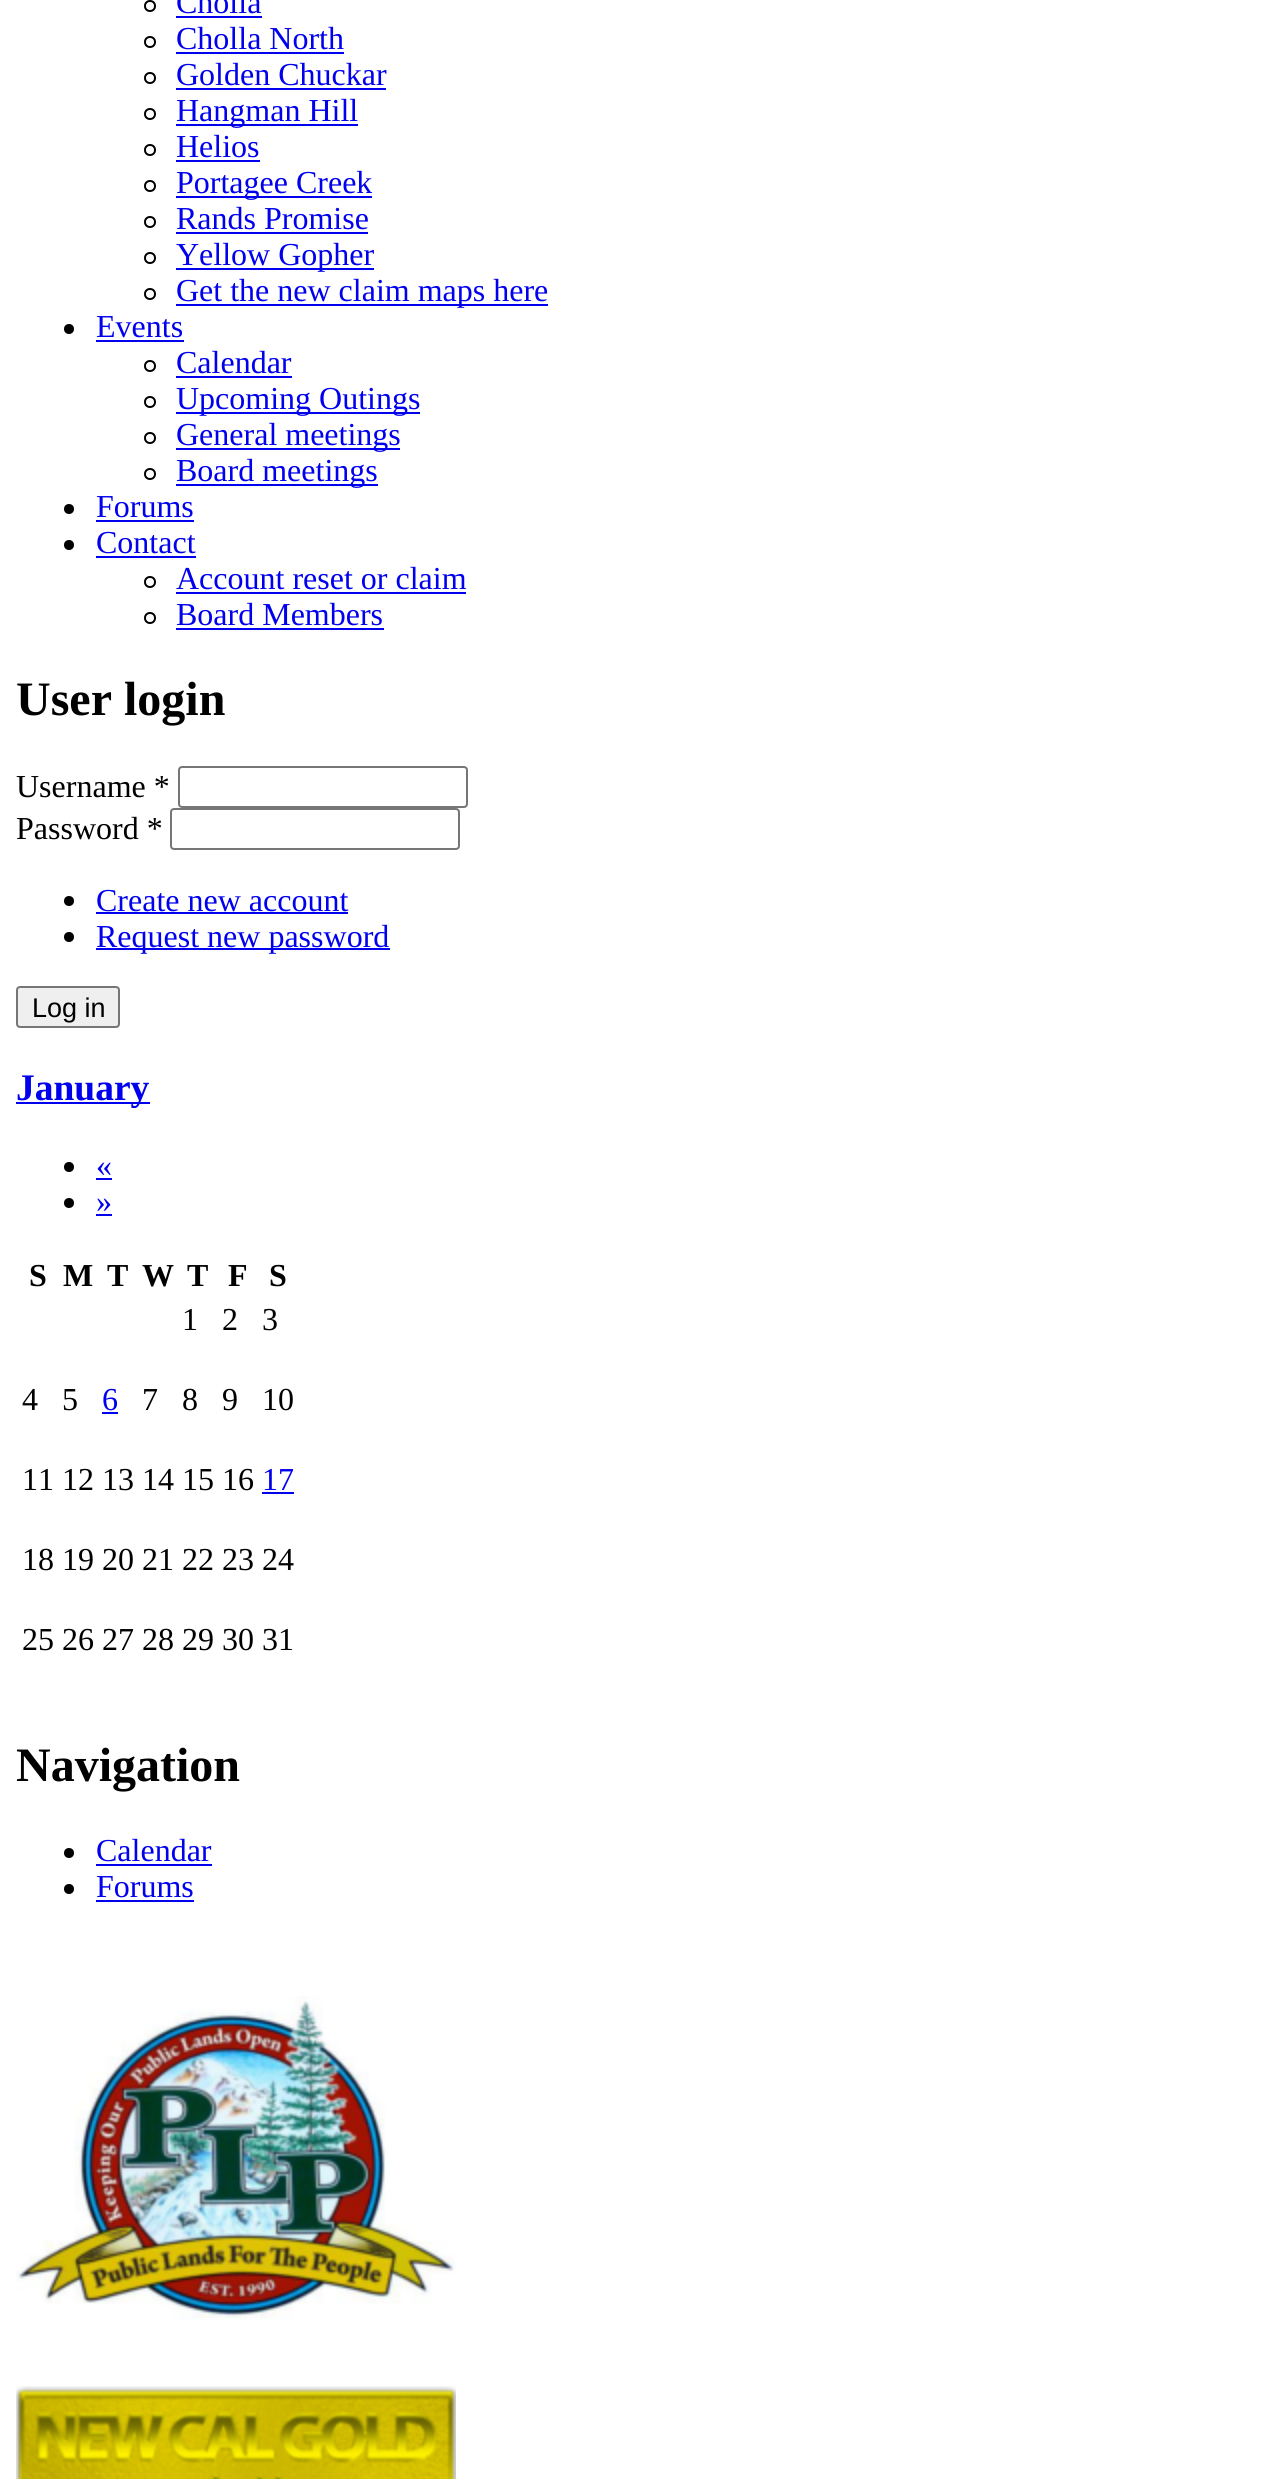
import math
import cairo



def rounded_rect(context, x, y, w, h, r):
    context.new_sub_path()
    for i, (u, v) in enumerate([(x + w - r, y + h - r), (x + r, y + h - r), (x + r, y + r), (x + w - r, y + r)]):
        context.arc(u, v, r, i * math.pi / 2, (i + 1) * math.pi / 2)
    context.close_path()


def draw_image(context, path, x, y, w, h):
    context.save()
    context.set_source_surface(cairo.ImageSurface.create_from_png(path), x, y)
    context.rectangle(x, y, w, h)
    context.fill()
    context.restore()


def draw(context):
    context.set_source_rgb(1, 1, 1)
    context.paint()
    context.arc(150, 6, 5, 0, 2 * math.pi)
    context.set_source_rgb(0, 0, 0)
    context.stroke()
    context.set_source_rgb(0, 0, 238 / 255)
    context.rectangle(176, 16, 86, 2)
    context.fill()
    context.arc(150, 42, 5, 0, 2 * math.pi)
    context.set_source_rgb(0, 0, 0)
    context.stroke()
    context.set_source_rgb(0, 0, 238 / 255)
    context.rectangle(176, 52, 168, 2)
    context.fill()
    context.arc(150, 78, 5, 0, 2 * math.pi)
    context.set_source_rgb(0, 0, 0)
    context.stroke()
    context.set_source_rgb(0, 0, 238 / 255)
    context.rectangle(176, 88, 210, 2)
    context.fill()
    context.arc(150, 114, 5, 0, 2 * math.pi)
    context.set_source_rgb(0, 0, 0)
    context.stroke()
    context.set_source_rgb(0, 0, 238 / 255)
    context.rectangle(176, 124, 182, 2)
    context.fill()
    context.arc(150, 150, 5, 0, 2 * math.pi)
    context.set_source_rgb(0, 0, 0)
    context.stroke()
    context.set_source_rgb(0, 0, 238 / 255)
    context.rectangle(176, 160, 84, 2)
    context.fill()
    context.arc(150, 186, 5, 0, 2 * math.pi)
    context.set_source_rgb(0, 0, 0)
    context.stroke()
    context.set_source_rgb(0, 0, 238 / 255)
    context.rectangle(176, 196, 196, 2)
    context.fill()
    context.arc(150, 222, 5, 0, 2 * math.pi)
    context.set_source_rgb(0, 0, 0)
    context.stroke()
    context.set_source_rgb(0, 0, 238 / 255)
    context.rectangle(176, 232, 192, 2)
    context.fill()
    context.arc(150, 258, 5, 0, 2 * math.pi)
    context.set_source_rgb(0, 0, 0)
    context.stroke()
    context.set_source_rgb(0, 0, 238 / 255)
    context.rectangle(176, 268, 198, 2)
    context.fill()
    context.arc(150, 294, 5, 0, 2 * math.pi)
    context.set_source_rgb(0, 0, 0)
    context.stroke()
    context.set_source_rgb(0, 0, 238 / 255)
    context.rectangle(176, 304, 372, 2)
    context.fill()
    context.set_source_rgb(0, 0, 0)
    context.arc(69, 329, 5, 0, 2 * math.pi)
    context.fill()
    context.set_source_rgb(0, 0, 238 / 255)
    context.rectangle(96, 340, 88, 2)
    context.fill()
    context.arc(150, 366, 5, 0, 2 * math.pi)
    context.set_source_rgb(0, 0, 0)
    context.stroke()
    context.set_source_rgb(0, 0, 238 / 255)
    context.rectangle(176, 376, 116, 2)
    context.fill()
    context.arc(150, 402, 5, 0, 2 * math.pi)
    context.set_source_rgb(0, 0, 0)
    context.stroke()
    context.set_source_rgb(0, 0, 238 / 255)
    context.rectangle(176, 412, 244, 2)
    context.fill()
    context.arc(150, 438, 5, 0, 2 * math.pi)
    context.set_source_rgb(0, 0, 0)
    context.stroke()
    context.set_source_rgb(0, 0, 238 / 255)
    context.rectangle(176, 448, 224, 2)
    context.fill()
    context.arc(150, 474, 5, 0, 2 * math.pi)
    context.set_source_rgb(0, 0, 0)
    context.stroke()
    context.set_source_rgb(0, 0, 238 / 255)
    context.rectangle(176, 484, 202, 2)
    context.fill()
    context.set_source_rgb(0, 0, 0)
    context.arc(69, 509, 5, 0, 2 * math.pi)
    context.fill()
    context.set_source_rgb(0, 0, 238 / 255)
    context.rectangle(96, 520, 98, 2)
    context.fill()
    context.set_source_rgb(0, 0, 0)
    context.arc(69, 545, 5, 0, 2 * math.pi)
    context.fill()
    context.set_source_rgb(0, 0, 238 / 255)
    context.rectangle(96, 556, 100, 2)
    context.fill()
    context.arc(150, 582, 5, 0, 2 * math.pi)
    context.set_source_rgb(0, 0, 0)
    context.stroke()
    context.set_source_rgb(0, 0, 238 / 255)
    context.rectangle(176, 592, 290, 2)
    context.fill()
    context.arc(150, 618, 5, 0, 2 * math.pi)
    context.set_source_rgb(0, 0, 0)
    context.stroke()
    context.set_source_rgb(0, 0, 238 / 255)
    context.rectangle(176, 628, 208, 2)
    context.fill()
    rounded_rect(context, 179, 767, 288, 40, 3)
    context.set_source_rgb(118 / 255, 118 / 255, 118 / 255)
    context.stroke()
    rounded_rect(context, 171, 809, 288, 40, 3)
    context.stroke()
    context.set_source_rgb(0, 0, 0)
    context.arc(69, 901, 5, 0, 2 * math.pi)
    context.fill()
    context.set_source_rgb(0, 0, 238 / 255)
    context.rectangle(96, 912, 252, 2)
    context.fill()
    context.set_source_rgb(0, 0, 0)
    context.arc(69, 937, 5, 0, 2 * math.pi)
    context.fill()
    context.set_source_rgb(0, 0, 238 / 255)
    context.rectangle(96, 948, 294, 2)
    context.fill()
    context.set_source_rgb(239 / 255, 239 / 255, 239 / 255)
    rounded_rect(context, 17, 987, 102, 40, 3)
    context.fill_preserve()
    context.set_source_rgb(118 / 255, 118 / 255, 118 / 255)
    context.stroke()
    context.set_source_rgb(0, 0, 238 / 255)
    context.rectangle(16, 1102, 134, 2)
    context.fill()
    context.set_source_rgb(0, 0, 0)
    context.arc(69, 1167, 5, 0, 2 * math.pi)
    context.fill()
    context.set_source_rgb(0, 0, 238 / 255)
    context.rectangle(96, 1178, 16, 2)
    context.fill()
    context.set_source_rgb(0, 0, 0)
    context.arc(69, 1203, 5, 0, 2 * math.pi)
    context.fill()
    context.set_source_rgb(0, 0, 238 / 255)
    context.rectangle(96, 1214, 16, 2)
    context.fill()
    context.rectangle(102, 1412, 16, 2)
    context.fill()
    context.rectangle(262, 1492, 32, 2)
    context.fill()
    context.set_source_rgb(0, 0, 0)
    context.arc(69, 1853, 5, 0, 2 * math.pi)
    context.fill()
    context.set_source_rgb(0, 0, 238 / 255)
    context.rectangle(96, 1864, 116, 2)
    context.fill()
    context.set_source_rgb(0, 0, 0)
    context.arc(69, 1889, 5, 0, 2 * math.pi)
    context.fill()
    context.set_source_rgb(0, 0, 238 / 255)
    context.rectangle(96, 1900, 98, 2)
    context.fill()
    draw_image(context, "images/1.png", 16, 1996, 440, 324)
    draw_image(context, "images/2.png", 16, 2386, 440, 93)
    context.select_font_face("Liberation Serif")
    context.set_font_size(32)
    context.move_to(176, 13)
    context.show_text("Cholla")
    context.move_to(176, 49)
    context.show_text("Cholla North")
    context.move_to(176, 85)
    context.show_text("Golden Chuckar")
    context.move_to(176, 121)
    context.show_text("Hangman Hill")
    context.move_to(176, 157)
    context.show_text("Helios")
    context.move_to(176, 193)
    context.show_text("Portagee Creek")
    context.move_to(176, 229)
    context.show_text("Rands Promise")
    context.move_to(176, 265)
    context.show_text("Yellow Gopher")
    context.move_to(176, 301)
    context.show_text("Get the new claim maps here")
    context.move_to(96, 337)
    context.show_text("Events")
    context.move_to(176, 373)
    context.show_text("Calendar")
    context.move_to(176, 409)
    context.show_text("Upcoming Outings")
    context.move_to(176, 445)
    context.show_text("General meetings")
    context.move_to(176, 481)
    context.show_text("Board meetings")
    context.move_to(96, 517)
    context.show_text("Forums")
    context.move_to(96, 553)
    context.show_text("Contact")
    context.move_to(176, 589)
    context.show_text("Account reset or claim")
    context.move_to(176, 625)
    context.show_text("Board Members")
    context.select_font_face("Liberation Serif", cairo.FontSlant.NORMAL, cairo.FontWeight.BOLD)
    context.set_font_size(48)
    context.set_source_rgb(0, 0, 0)
    context.move_to(16, 715)
    context.show_text("User login")
    context.select_font_face("Liberation Serif")
    context.set_font_size(32)
    context.move_to(16, 797)
    context.show_text("Username *")
    context.move_to(16, 839)
    context.show_text("Password *")
    context.set_source_rgb(0, 0, 238 / 255)
    context.move_to(96, 911)
    context.show_text("Create new account")
    context.move_to(96, 947)
    context.show_text("Request new password")
    context.select_font_face("Liberation Sans")
    context.set_font_size(27)
    context.set_source_rgb(0, 0, 0)
    context.move_to(32, 1017)
    context.show_text("Log in")
    context.select_font_face("Liberation Serif", cairo.FontSlant.NORMAL, cairo.FontWeight.BOLD)
    context.set_font_size(37.5)
    context.set_source_rgb(0, 0, 238 / 255)
    context.move_to(16, 1100)
    context.show_text("January")
    context.select_font_face("Liberation Serif")
    context.set_font_size(32)
    context.move_to(96, 1176)
    context.show_text("«")
    context.move_to(96, 1212)
    context.show_text("»")
    context.select_font_face("Liberation Serif", cairo.FontSlant.NORMAL, cairo.FontWeight.BOLD)
    context.set_source_rgb(0, 0, 0)
    context.move_to(29, 1286)
    context.show_text("S")
    context.move_to(63, 1286)
    context.show_text("M")
    context.move_to(107, 1286)
    context.show_text("T")
    context.move_to(142, 1286)
    context.show_text("W")
    context.move_to(187, 1286)
    context.show_text("T")
    context.move_to(228, 1286)
    context.show_text("F")
    context.move_to(269, 1286)
    context.show_text("S")
    context.select_font_face("Liberation Serif")
    context.move_to(182, 1330)
    context.show_text("1")
    context.move_to(222, 1330)
    context.show_text("2")
    context.move_to(262, 1330)
    context.show_text("3")
    context.move_to(22, 1410)
    context.show_text("4")
    context.move_to(62, 1410)
    context.show_text("5")
    context.set_source_rgb(0, 0, 238 / 255)
    context.move_to(102, 1410)
    context.show_text("6")
    context.set_source_rgb(0, 0, 0)
    context.move_to(142, 1410)
    context.show_text("7")
    context.move_to(182, 1410)
    context.show_text("8")
    context.move_to(222, 1410)
    context.show_text("9")
    context.move_to(262, 1410)
    context.show_text("10")
    context.move_to(22, 1490)
    context.show_text("11 12 13 14 15 16")
    context.set_source_rgb(0, 0, 238 / 255)
    context.move_to(262, 1490)
    context.show_text("17")
    context.set_source_rgb(0, 0, 0)
    context.move_to(22, 1570)
    context.show_text("18 19 20 21 22 23 24")
    context.move_to(22, 1650)
    context.show_text("25 26 27 28 29 30 31")
    context.select_font_face("Liberation Serif", cairo.FontSlant.NORMAL, cairo.FontWeight.BOLD)
    context.set_font_size(48)
    context.move_to(16, 1781)
    context.show_text("Navigation")
    context.select_font_face("Liberation Serif")
    context.set_font_size(32)
    context.set_source_rgb(0, 0, 238 / 255)
    context.move_to(96, 1861)
    context.show_text("Calendar")
    context.move_to(96, 1897)
    context.show_text("Forums")


surface = cairo.ImageSurface(cairo.Format.RGB24, 1284, 2479)
context = cairo.Context(surface)
options = cairo.FontOptions()
options.set_hint_metrics(cairo.HintMetrics.OFF)
options.set_hint_style(cairo.HintStyle.NONE)
context.set_font_options(options)
context.set_miter_limit(4)
draw(context)
surface.write_to_png("out.png")
